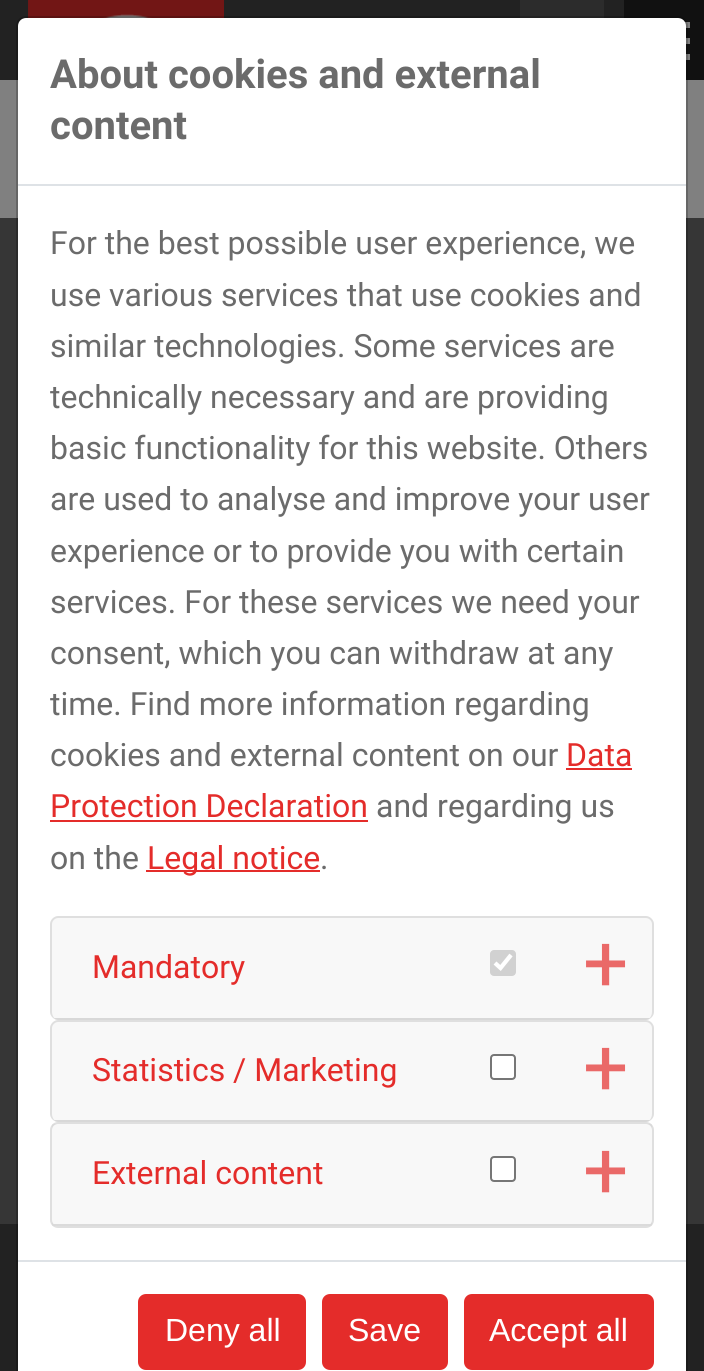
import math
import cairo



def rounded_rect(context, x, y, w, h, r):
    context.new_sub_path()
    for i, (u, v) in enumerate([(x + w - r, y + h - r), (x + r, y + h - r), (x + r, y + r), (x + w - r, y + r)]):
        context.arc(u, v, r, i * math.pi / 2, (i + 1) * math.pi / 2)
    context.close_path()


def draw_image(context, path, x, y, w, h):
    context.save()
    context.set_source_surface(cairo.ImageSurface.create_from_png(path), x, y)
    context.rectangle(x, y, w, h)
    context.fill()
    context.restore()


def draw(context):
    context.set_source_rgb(128 / 255, 128 / 255, 128 / 255)
    context.paint()
    context.set_source_rgb(34 / 255, 34 / 255, 34 / 255)
    context.rectangle(0, 0, 624, 80)
    context.fill()
    context.set_source_rgb(114 / 255, 22 / 255, 21 / 255)
    context.rectangle(217, 0, 7, 18)
    context.fill()
    draw_image(context, "images/1.png", 28, 0, 189, 18)
    context.set_source_rgb(44 / 255, 44 / 255, 44 / 255)
    context.rectangle(520, 0, 84, 18)
    context.fill()
    context.set_source_rgb(17 / 255, 17 / 255, 17 / 255)
    context.rectangle(624, 0, 80, 80)
    context.fill()
    context.set_source_rgb(128 / 255, 128 / 255, 128 / 255)
    context.rectangle(686, 38, 4, 6)
    context.fill()
    context.rectangle(684, 22, 6, 6)
    context.fill()
    context.rectangle(686, 54, 4, 6)
    context.fill()
    context.set_source_rgb(54 / 255, 54 / 255, 54 / 255)
    context.rectangle(0, 218, 704, 1006)
    context.fill()
    context.set_source_rgb(34 / 255, 34 / 255, 34 / 255)
    context.rectangle(0, 1224, 704, 147)
    context.fill()
    context.set_source_rgb(1, 1, 1)
    context.new_path()
    context.move_to(26, 18)
    context.line_to(678, 18)
    context.curve_to(682.5, 18, 686, 21.5, 686, 26)
    context.line_to(686, 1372)
    context.line_to(18, 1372)
    context.line_to(18, 26)
    context.curve_to(18, 21.5, 21.5, 18, 26, 18)
    context.close_path()
    context.fill()
    rounded_rect(context, 17, 17, 670, 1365, 9)
    context.set_source_rgba(0, 0, 0, 0.2)
    context.stroke()
    context.set_source_rgb(222 / 255, 226 / 255, 230 / 255)
    context.rectangle(18, 184, 668, 2)
    context.fill()
    context.set_source_rgb(228 / 255, 44 / 255, 42 / 255)
    context.rectangle(566, 768, 66, 2)
    context.fill()
    context.rectangle(50, 820, 318, 2)
    context.fill()
    context.rectangle(146, 870, 174, 2)
    context.fill()
    context.set_source_rgb(223 / 255, 223 / 255, 223 / 255)
    context.set_fill_rule(cairo.FillRule.EVEN_ODD)
    context.new_path()
    context.move_to(58, 916)
    context.line_to(646, 916)
    context.curve_to(650, 916, 654, 920, 654, 924)
    context.line_to(654, 1012)
    context.curve_to(654, 1016, 650, 1020, 646, 1020)
    context.line_to(58, 1020)
    context.curve_to(54, 1020, 50, 1016, 50, 1012)
    context.line_to(50, 924)
    context.curve_to(50, 920, 54, 916, 58, 916)
    context.close_path()
    context.move_to(58, 918)
    context.line_to(646, 918)
    context.curve_to(649, 918, 652, 921, 652, 924)
    context.line_to(652, 1012)
    context.curve_to(652, 1016, 649, 1020, 646, 1020)
    context.line_to(58, 1020)
    context.curve_to(55, 1020, 52, 1016, 52, 1012)
    context.line_to(52, 924)
    context.curve_to(52, 921, 55, 918, 58, 918)
    context.close_path()
    context.fill()
    context.set_source_rgba(0, 0, 0, 0.03)
    context.set_fill_rule(cairo.FillRule.WINDING)
    context.new_path()
    context.move_to(58, 918)
    context.curve_to(55, 918, 52, 921, 52, 924)
    context.line_to(52, 1012)
    context.curve_to(52, 1016, 55, 1020, 58, 1020)
    context.line_to(646, 1020)
    context.curve_to(649, 1020, 652, 1016, 652, 1012)
    context.line_to(652, 924)
    context.curve_to(652, 921, 649, 918, 646, 918)
    context.close_path()
    context.fill()
    context.set_source_rgb(216 / 255, 216 / 255, 216 / 255)
    context.new_path()
    context.move_to(58, 1020)
    context.line_to(646, 1020)
    context.curve_to(648, 1020, 649, 1019, 650, 1018)
    context.line_to(54, 1018)
    context.curve_to(55, 1019, 56, 1020, 58, 1020)
    context.close_path()
    context.fill()
    context.set_source_rgb(209 / 255, 209 / 255, 209 / 255)
    rounded_rect(context, 490, 950, 26, 26, 4)
    context.fill()
    context.new_path()
    context.move_to(495, 963)
    context.line_to(500.5, 968)
    context.line_to(511, 955)
    context.set_source_rgb(1, 1, 1)
    context.set_line_width(4.2)
    context.stroke()
    context.set_source_rgb(223 / 255, 223 / 255, 223 / 255)
    context.set_fill_rule(cairo.FillRule.EVEN_ODD)
    context.new_path()
    context.move_to(58, 1020)
    context.line_to(646, 1020)
    context.curve_to(650, 1020, 654, 1024, 654, 1028)
    context.line_to(654, 1114)
    context.curve_to(654, 1118, 650, 1122, 646, 1122)
    context.line_to(58, 1122)
    context.curve_to(54, 1122, 50, 1118, 50, 1114)
    context.line_to(50, 1028)
    context.curve_to(50, 1024, 54, 1020, 58, 1020)
    context.close_path()
    context.move_to(58, 1022)
    context.line_to(646, 1022)
    context.curve_to(649, 1022, 652, 1025, 652, 1028)
    context.line_to(652, 1114)
    context.curve_to(652, 1118, 649, 1122, 646, 1122)
    context.line_to(58, 1122)
    context.curve_to(55, 1122, 52, 1118, 52, 1114)
    context.line_to(52, 1028)
    context.curve_to(52, 1025, 55, 1022, 58, 1022)
    context.close_path()
    context.fill()
    context.set_source_rgba(0, 0, 0, 0.03)
    context.set_fill_rule(cairo.FillRule.WINDING)
    context.new_path()
    context.move_to(58, 1022)
    context.curve_to(55, 1022, 52, 1025, 52, 1028)
    context.line_to(52, 1114)
    context.curve_to(52, 1118, 55, 1122, 58, 1122)
    context.line_to(646, 1122)
    context.curve_to(649, 1122, 652, 1118, 652, 1114)
    context.line_to(652, 1028)
    context.curve_to(652, 1025, 649, 1022, 646, 1022)
    context.close_path()
    context.fill()
    context.set_source_rgb(216 / 255, 216 / 255, 216 / 255)
    context.new_path()
    context.move_to(58, 1122)
    context.line_to(646, 1122)
    context.curve_to(648, 1122, 649, 1121, 650, 1120)
    context.line_to(54, 1120)
    context.curve_to(55, 1121, 56, 1122, 58, 1122)
    context.close_path()
    context.fill()
    context.set_source_rgb(1, 1, 1)
    rounded_rect(context, 491, 1055, 24, 24, 3)
    context.fill_preserve()
    context.set_source_rgb(118 / 255, 118 / 255, 118 / 255)
    context.set_line_width(2)
    context.stroke()
    rounded_rect(context, 51, 1123, 602, 104, 7)
    context.set_source_rgb(223 / 255, 223 / 255, 223 / 255)
    context.stroke()
    context.set_source_rgba(0, 0, 0, 0.03)
    context.rectangle(52, 1124, 600, 102)
    context.fill()
    context.save()
    rounded_rect(context, 52, 1124, 600, 102, 6)
    context.clip()
    context.set_source_rgba(0, 0, 0, 0.12)
    context.rectangle(52, 1224, 600, 2)
    context.fill()
    context.restore()
    context.set_source_rgb(1, 1, 1)
    rounded_rect(context, 491, 1157, 24, 24, 3)
    context.fill_preserve()
    context.set_source_rgb(118 / 255, 118 / 255, 118 / 255)
    context.stroke()
    context.set_source_rgb(222 / 255, 226 / 255, 230 / 255)
    context.rectangle(18, 1260, 668, 2)
    context.fill()
    context.set_source_rgb(228 / 255, 44 / 255, 42 / 255)
    rounded_rect(context, 139, 1295, 166, 74, 7)
    context.fill_preserve()
    context.stroke()
    rounded_rect(context, 323, 1295, 124, 74, 7)
    context.fill_preserve()
    context.stroke()
    rounded_rect(context, 465, 1295, 188, 74, 7)
    context.fill_preserve()
    context.stroke()
    context.select_font_face("Roboto", cairo.FontSlant.NORMAL, cairo.FontWeight.BOLD)
    context.set_font_size(40)
    context.set_source_rgb(107 / 255, 107 / 255, 107 / 255)
    context.move_to(50, 88)
    context.show_text("About cookies and external")
    context.move_to(50, 139)
    context.show_text("content")
    context.select_font_face("Roboto")
    context.set_font_size(32)
    context.move_to(50, 254)
    context.show_text("For the best possible user experience, we")
    context.move_to(50, 306)
    context.show_text("use various services that use cookies and")
    context.move_to(50, 357)
    context.show_text("similar technologies. Some services are")
    context.move_to(50, 408)
    context.show_text("technically necessary and are providing")
    context.move_to(50, 459)
    context.show_text("basic functionality for this website. Others")
    context.move_to(50, 510)
    context.show_text("are used to analyse and improve your user")
    context.move_to(50, 562)
    context.show_text("experience or to provide you with certain")
    context.move_to(50, 613)
    context.show_text("services. For these services we need your")
    context.move_to(50, 664)
    context.show_text("consent, which you can withdraw at any")
    context.move_to(50, 715)
    context.show_text("time. Find more information regarding")
    context.move_to(50, 766)
    context.show_text("cookies and external content on our")
    context.set_source_rgb(228 / 255, 44 / 255, 42 / 255)
    context.move_to(566, 766)
    context.show_text("Data")
    context.move_to(50, 817)
    context.show_text("Protection Declaration")
    context.set_source_rgb(107 / 255, 107 / 255, 107 / 255)
    context.move_to(376, 817)
    context.show_text("and regarding us")
    context.move_to(50, 869)
    context.show_text("on the")
    context.set_source_rgb(228 / 255, 44 / 255, 42 / 255)
    context.move_to(147, 869)
    context.show_text("Legal notice")
    context.set_source_rgb(107 / 255, 107 / 255, 107 / 255)
    context.move_to(320, 869)
    context.show_text(".")
    context.set_source_rgb(228 / 255, 44 / 255, 42 / 255)
    context.move_to(92, 978)
    context.show_text("Mandatory")
    context.set_font_size(80)
    context.set_source_rgb(234 / 255, 105 / 255, 104 / 255)
    context.move_to(583, 991)
    context.show_text("+")
    context.set_font_size(32)
    context.set_source_rgb(228 / 255, 44 / 255, 42 / 255)
    context.move_to(92, 1081)
    context.show_text("Statistics / Marketing")
    context.set_font_size(80)
    context.set_source_rgb(234 / 255, 105 / 255, 104 / 255)
    context.move_to(583, 1095)
    context.show_text("+")
    context.set_font_size(32)
    context.set_source_rgb(228 / 255, 44 / 255, 42 / 255)
    context.move_to(92, 1184)
    context.show_text("External content")
    context.set_font_size(80)
    context.set_source_rgb(234 / 255, 105 / 255, 104 / 255)
    context.move_to(583, 1198)
    context.show_text("+")
    context.select_font_face("Liberation Sans")
    context.set_font_size(32)
    context.set_source_rgb(1, 1, 1)
    context.move_to(165, 1341)
    context.show_text("Deny all")
    context.move_to(348, 1341)
    context.show_text("Save")
    context.move_to(489, 1341)
    context.show_text("Accept all")


surface = cairo.ImageSurface(cairo.Format.RGB24, 704, 1371)
context = cairo.Context(surface)
options = cairo.FontOptions()
options.set_hint_metrics(cairo.HintMetrics.OFF)
options.set_hint_style(cairo.HintStyle.NONE)
context.set_font_options(options)
context.set_miter_limit(4)
draw(context)
surface.write_to_png("out.png")
